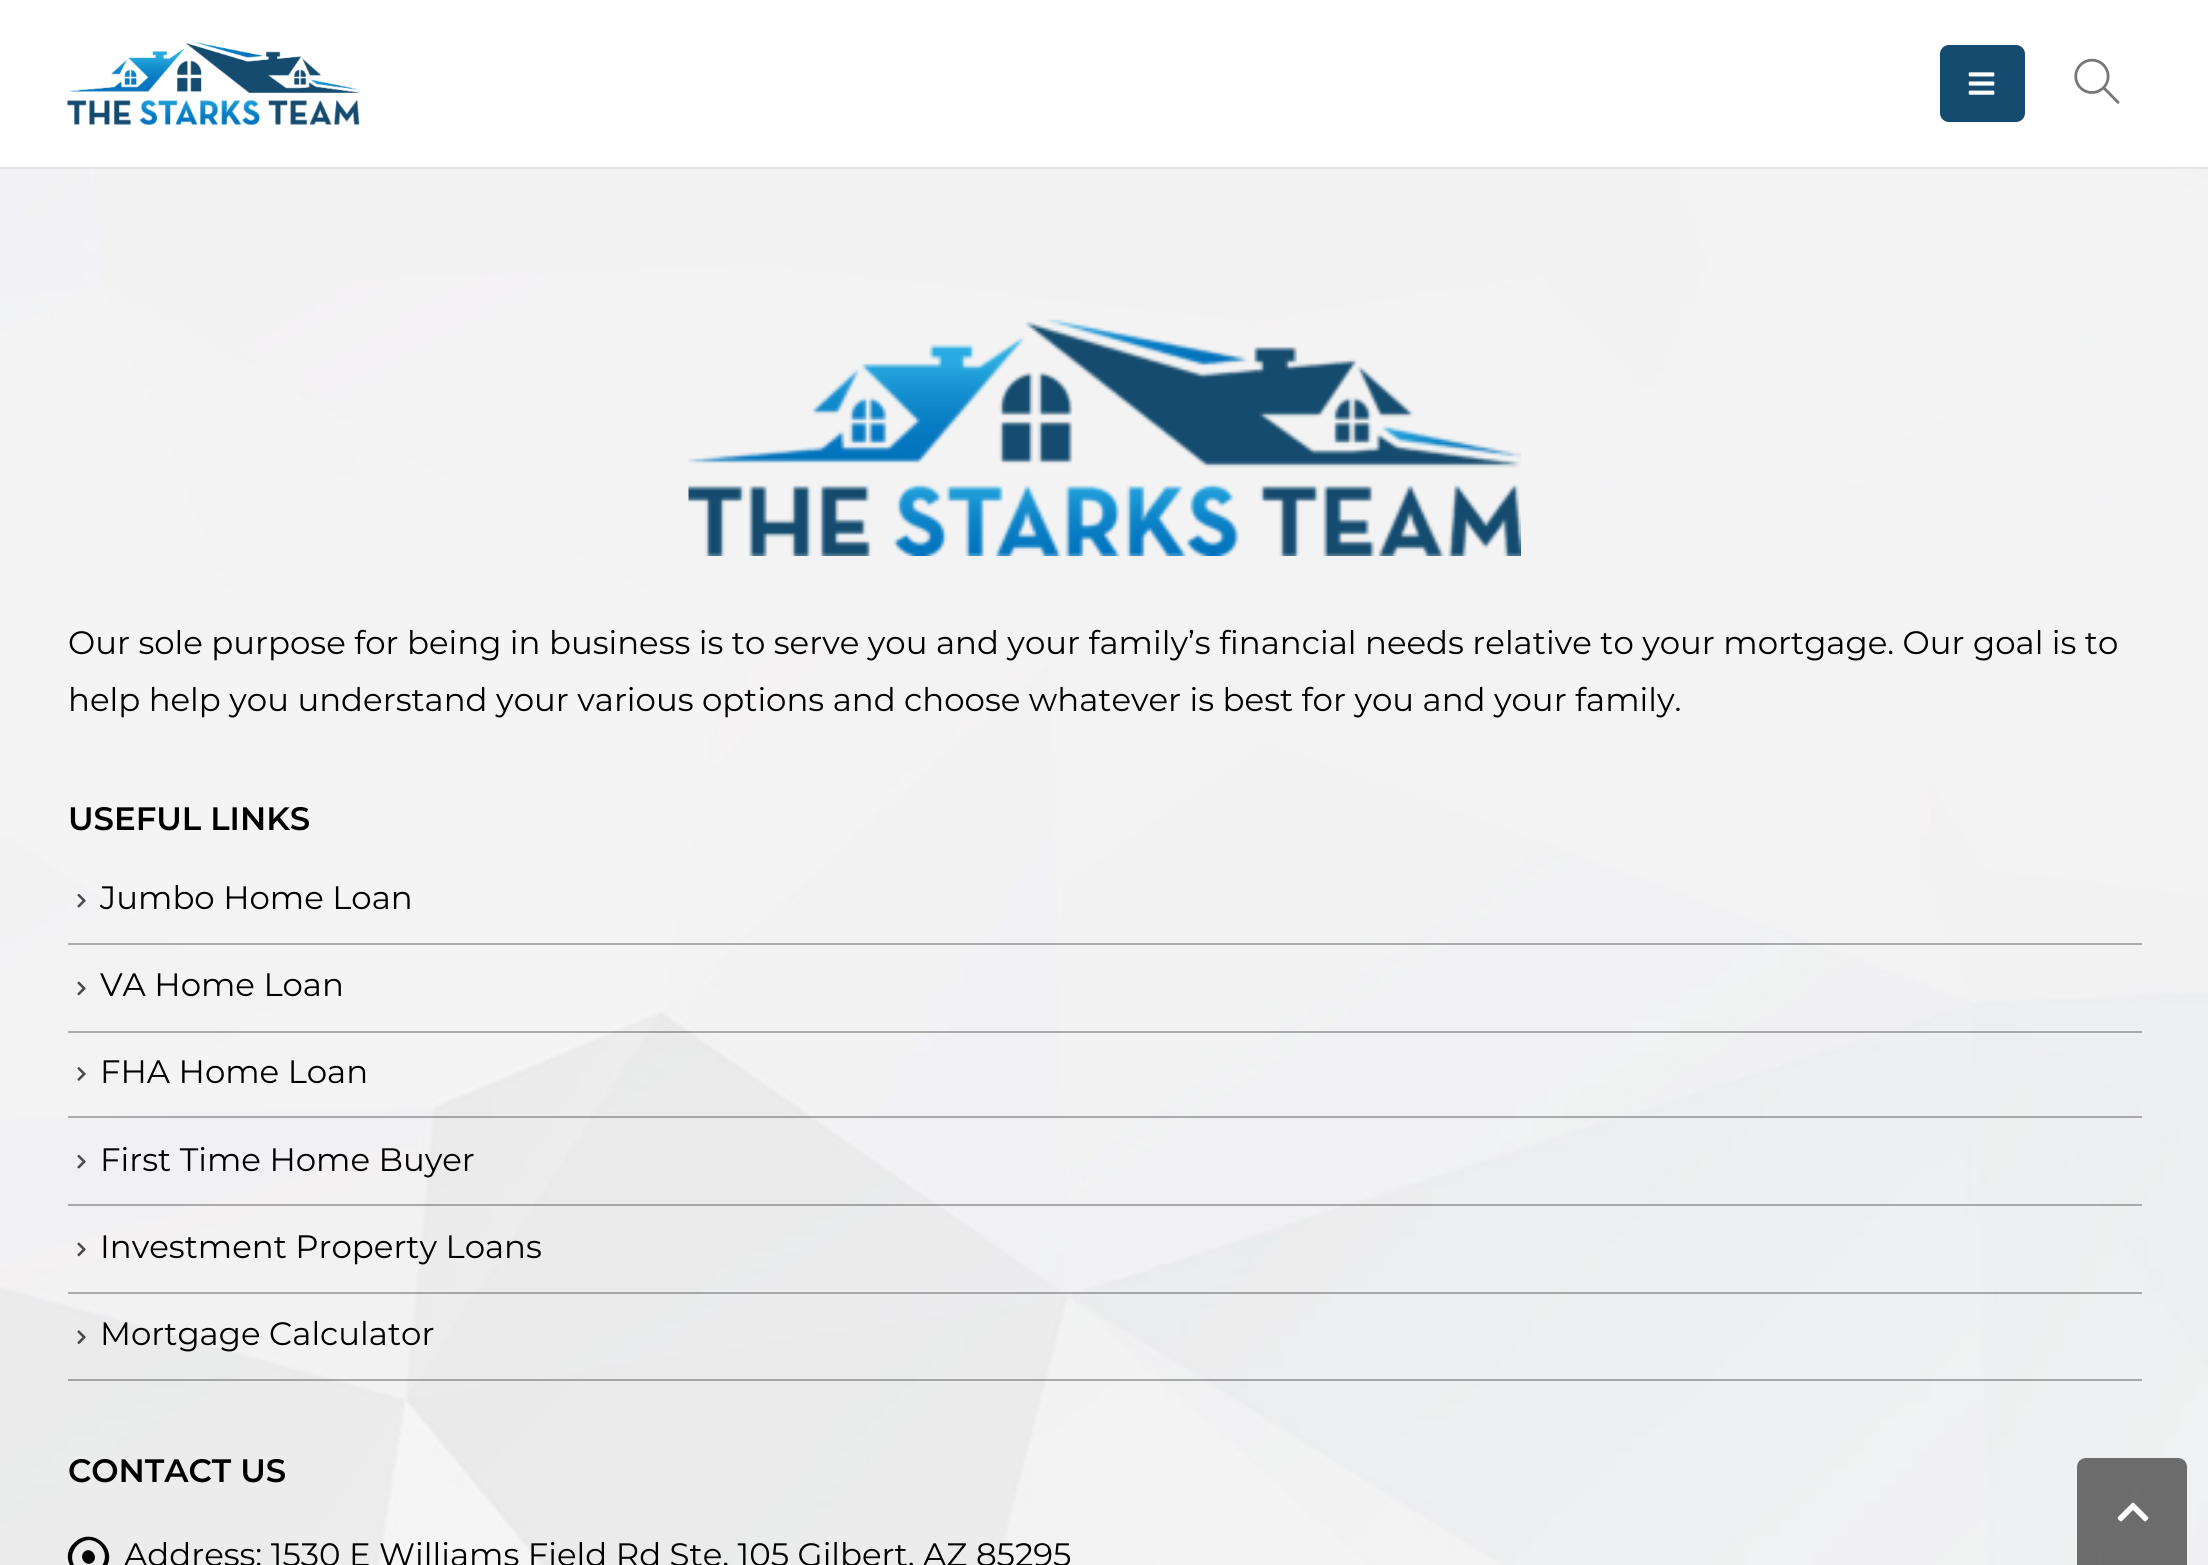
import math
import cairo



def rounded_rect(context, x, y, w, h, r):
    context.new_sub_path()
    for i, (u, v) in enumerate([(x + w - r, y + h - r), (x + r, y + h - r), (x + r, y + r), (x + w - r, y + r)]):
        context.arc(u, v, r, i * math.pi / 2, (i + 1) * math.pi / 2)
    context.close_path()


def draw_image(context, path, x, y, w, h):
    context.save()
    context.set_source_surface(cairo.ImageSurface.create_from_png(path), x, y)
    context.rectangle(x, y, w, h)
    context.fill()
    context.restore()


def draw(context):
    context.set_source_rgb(1, 1, 1)
    context.paint()
    draw_image(context, "images/4.png", 0, 167, 2208, 1398)
    context.set_source_rgba(0, 0, 0, 0.06)
    context.new_path()
    context.move_to(0, 166)
    context.line_to(0, 169)
    context.line_to(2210, 169)
    context.line_to(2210, 2)
    context.line_to(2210, 166)
    context.close_path()
    context.fill()
    context.set_source_rgb(1, 1, 1)
    context.rectangle(0, 166, 2208, 1)
    context.fill()
    draw_image(context, "images/1.png", 67, 41, 293, 84)
    context.set_source_rgb(20 / 255, 75 / 255, 110 / 255)
    rounded_rect(context, 1940, 45, 85, 77, 9)
    context.fill()
    draw_image(context, "images/2.png", 1968, 72, 27, 23)
    draw_image(context, "images/3.png", 2074, 58, 46, 46)
    draw_image(context, "images/5.png", 688, 319, 833, 237)
    context.set_source_rgba(0, 0, 0, 0.3)
    context.rectangle(68, 1379, 2074, 2)
    context.fill()
    draw_image(context, "images/6.png", 77, 893, 9, 15)
    context.rectangle(68, 943, 2074, 2)
    context.fill()
    draw_image(context, "images/7.png", 77, 981, 9, 15)
    context.rectangle(68, 1031, 2074, 2)
    context.fill()
    draw_image(context, "images/8.png", 77, 1067, 9, 14)
    context.rectangle(68, 1116, 2074, 2)
    context.fill()
    draw_image(context, "images/9.png", 77, 1154, 9, 15)
    context.rectangle(68, 1204, 2074, 2)
    context.fill()
    draw_image(context, "images/10.png", 77, 1242, 9, 15)
    context.rectangle(68, 1292, 2074, 2)
    context.fill()
    draw_image(context, "images/11.png", 77, 1330, 9, 14)
    context.set_source_rgb(0, 0, 0)
    context.new_path()
    context.move_to(100, 1545)
    context.curve_to(85, 1530, 62, 1553, 77, 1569)
    context.curve_to(92, 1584, 115, 1561, 100, 1545)
    context.close_path()
    context.move_to(74, 1543)
    context.curve_to(93, 1524, 122, 1552, 103, 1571)
    context.curve_to(84, 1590, 55, 1561, 74, 1543)
    context.close_path()
    context.move_to(84, 1552)
    context.curve_to(90, 1546, 99, 1556, 93, 1562)
    context.curve_to(87, 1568, 78, 1558, 84, 1552)
    context.close_path()
    context.fill()
    context.set_source_rgba(64 / 255, 64 / 255, 64 / 255, 0.75)
    context.new_path()
    context.move_to(2086, 1458)
    context.line_to(2178, 1458)
    context.curve_to(2183, 1458, 2187, 1462, 2187, 1467)
    context.line_to(2187, 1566)
    context.line_to(2077, 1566)
    context.line_to(2077, 1467)
    context.curve_to(2077, 1462, 2081, 1458, 2086, 1458)
    context.close_path()
    context.fill()
    draw_image(context, "images/12.png", 2117, 1502, 32, 20)
    context.select_font_face("Montserrat")
    context.set_font_size(32.4)
    context.set_source_rgb(0, 0, 0)
    context.move_to(68, 654)
    context.show_text("Our sole purpose for being in business is to serve you and your family’s financial needs relative to your mortgage. Our goal is to")
    context.move_to(68, 711)
    context.show_text("help help you understand your various options and choose whatever is best for you and your family.")
    context.select_font_face("Montserrat SemiBold")
    context.move_to(68, 830)
    context.show_text("USEFUL LINKS")
    context.select_font_face("Montserrat")
    context.move_to(100, 909)
    context.show_text("Jumbo Home Loan")
    context.move_to(100, 996)
    context.show_text("VA Home Loan")
    context.move_to(100, 1083)
    context.show_text("FHA Home Loan")
    context.move_to(100, 1171)
    context.show_text("First Time Home Buyer")
    context.move_to(100, 1258)
    context.show_text("Investment Property Loans")
    context.move_to(100, 1345)
    context.show_text("Mortgage Calculator")
    context.select_font_face("Montserrat SemiBold")
    context.move_to(68, 1482)
    context.show_text("CONTACT US")
    context.select_font_face("Montserrat")
    context.move_to(124, 1566)
    context.show_text("Address: 1530 E Williams Field Rd Ste. 105 Gilbert, AZ 85295")


surface = cairo.ImageSurface(cairo.Format.RGB24, 2208, 1565)
context = cairo.Context(surface)
options = cairo.FontOptions()
options.set_hint_metrics(cairo.HintMetrics.OFF)
options.set_hint_style(cairo.HintStyle.NONE)
context.set_font_options(options)
context.set_miter_limit(4)
draw(context)
surface.write_to_png("out.png")
